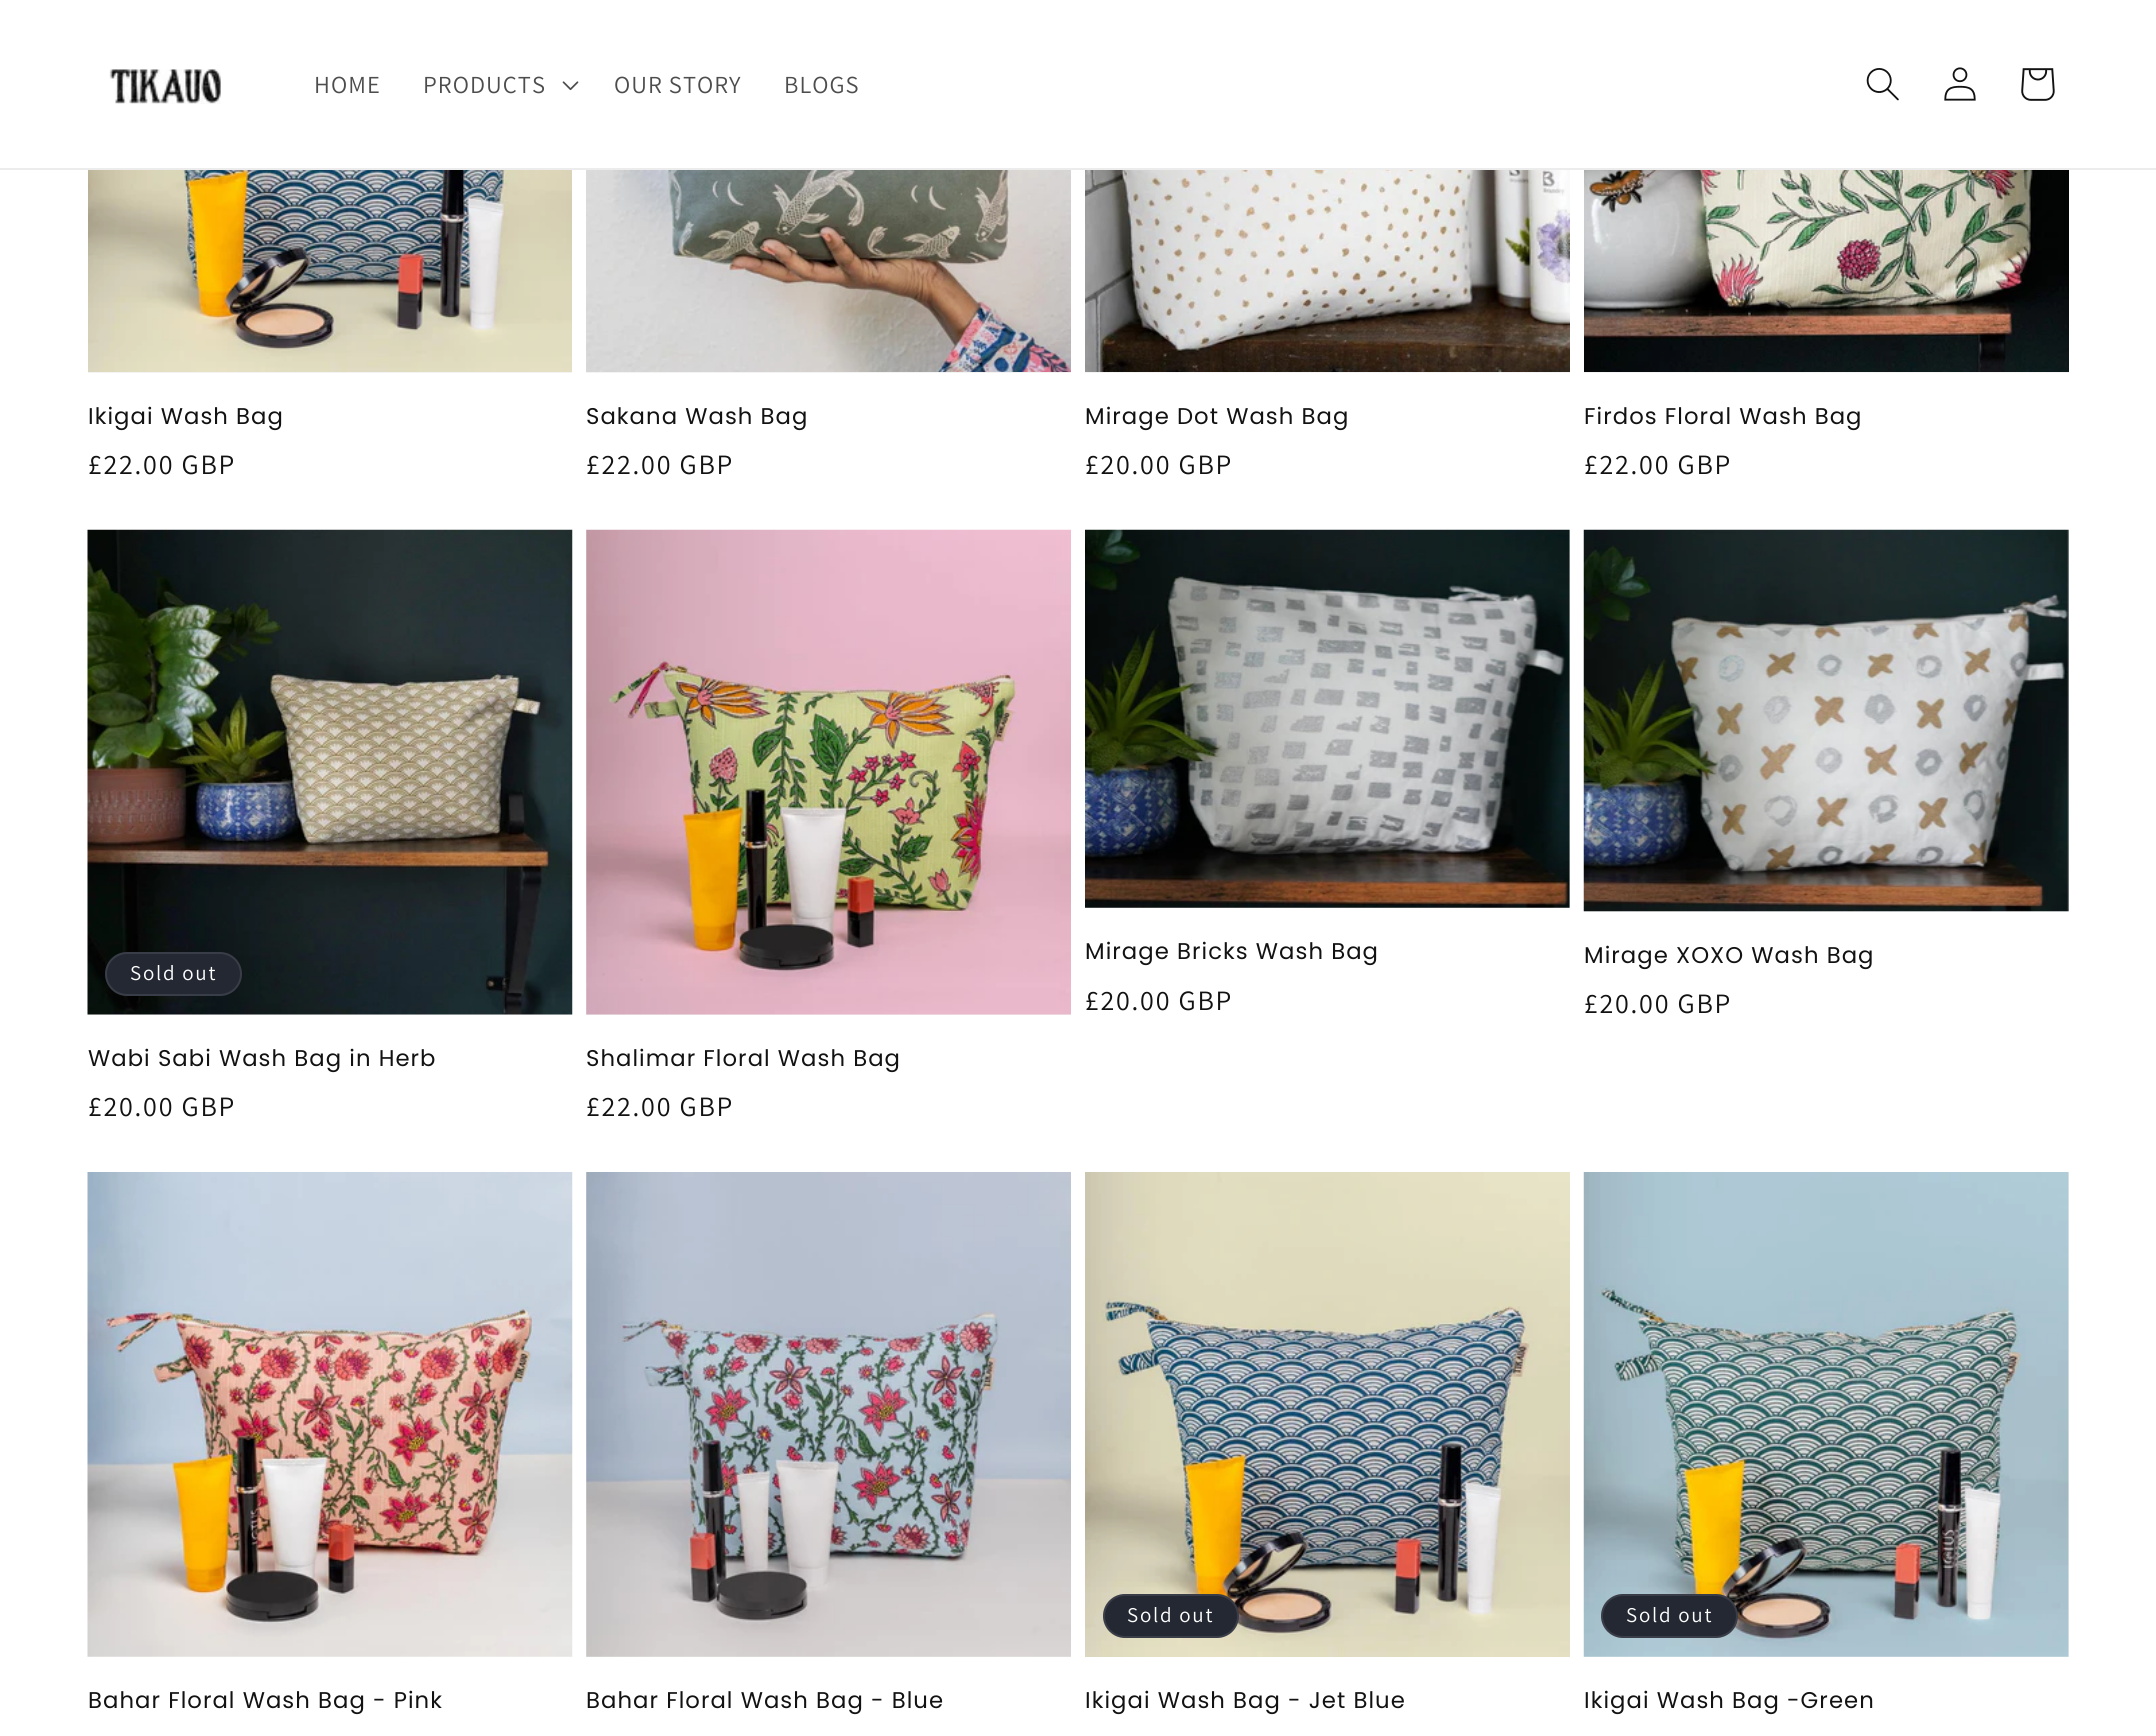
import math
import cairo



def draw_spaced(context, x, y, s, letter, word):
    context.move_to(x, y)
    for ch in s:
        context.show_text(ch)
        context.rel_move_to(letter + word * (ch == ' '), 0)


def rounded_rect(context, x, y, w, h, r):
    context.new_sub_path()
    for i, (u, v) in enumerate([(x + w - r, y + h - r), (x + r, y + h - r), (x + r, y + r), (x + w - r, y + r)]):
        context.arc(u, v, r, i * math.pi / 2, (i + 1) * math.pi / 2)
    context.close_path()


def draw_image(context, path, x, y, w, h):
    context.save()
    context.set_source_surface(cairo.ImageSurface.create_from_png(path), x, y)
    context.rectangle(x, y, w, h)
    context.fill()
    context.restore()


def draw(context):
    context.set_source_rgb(1, 1, 1)
    context.paint()
    context.set_source_rgb(236 / 255, 236 / 255, 236 / 255)
    context.rectangle(0, 168, 2156, 2)
    context.fill()
    draw_image(context, "images/1.png", 109, 69, 112, 35)
    draw_image(context, "images/2.png", 562, 81, 17, 10)
    draw_image(context, "images/3.png", 1866, 68, 33, 33)
    draw_image(context, "images/4.png", 1944, 67, 32, 34)
    draw_image(context, "images/5.png", 2021, 68, 34, 33)
    context.set_source_rgb(243 / 255, 243 / 255, 243 / 255)
    context.rectangle(88, 372, 484, 1)
    context.fill()
    draw_image(context, "images/6.png", 88, 170, 484, 202)
    context.rectangle(586, 372, 485, 1)
    context.fill()
    draw_image(context, "images/7.png", 586, 170, 485, 202)
    context.rectangle(1085, 372, 485, 1)
    context.fill()
    draw_image(context, "images/8.png", 1085, 170, 485, 202)
    context.rectangle(1584, 372, 485, 1)
    context.fill()
    draw_image(context, "images/9.png", 1584, 170, 485, 202)
    context.rectangle(88, 1014, 484, 1)
    context.fill()
    draw_image(context, "images/10.png", 87, 529, 486, 486)
    context.set_source_rgb(36 / 255, 40 / 255, 51 / 255)
    rounded_rect(context, 105, 952, 137, 44, 22)
    context.fill()
    rounded_rect(context, 106, 953, 135, 42, 21)
    context.set_source_rgba(1, 1, 1, 0.1)
    context.stroke()
    context.set_source_rgb(243 / 255, 243 / 255, 243 / 255)
    context.rectangle(586, 530, 485, 485)
    context.fill()
    draw_image(context, "images/11.png", 586, 529, 485, 486)
    context.rectangle(1085, 530, 485, 378)
    context.fill()
    draw_image(context, "images/12.png", 1085, 529, 485, 379)
    context.rectangle(1584, 530, 485, 382)
    context.fill()
    draw_image(context, "images/13.png", 1583, 529, 486, 383)
    draw_image(context, "images/14.png", 87, 1172, 486, 485)
    context.rectangle(586, 1173, 485, 484)
    context.fill()
    draw_image(context, "images/15.png", 586, 1172, 485, 485)
    draw_image(context, "images/16.png", 1085, 1172, 485, 485)
    context.set_source_rgb(36 / 255, 40 / 255, 51 / 255)
    rounded_rect(context, 1103, 1594, 136, 44, 22)
    context.fill()
    rounded_rect(context, 1104, 1595, 134, 42, 21)
    context.set_source_rgba(1, 1, 1, 0.1)
    context.stroke()
    context.set_source_rgb(243 / 255, 243 / 255, 243 / 255)
    context.rectangle(1584, 1173, 485, 484)
    context.fill()
    draw_image(context, "images/17.png", 1583, 1172, 486, 485)
    context.set_source_rgb(36 / 255, 40 / 255, 51 / 255)
    rounded_rect(context, 1601, 1594, 137, 44, 22)
    context.fill()
    rounded_rect(context, 1602, 1595, 135, 42, 21)
    context.set_source_rgba(1, 1, 1, 0.1)
    context.stroke()
    context.select_font_face("Assistant")
    context.set_font_size(24.5)
    context.set_source_rgb(77 / 255, 77 / 255, 77 / 255)
    draw_spaced(context, 314, 93, "HOME", 1.05, 0)
    draw_spaced(context, 423, 93, "PRODUCTS", 1.05, 0)
    draw_spaced(context, 614, 93, "OUR STORY", 1.05, 0)
    draw_spaced(context, 784, 93, "BLOGS", 1.05, 0)
    context.select_font_face("Poppins")
    context.set_font_size(22.75)
    context.set_source_rgb(18 / 255, 18 / 255, 18 / 255)
    draw_spaced(context, 88, 424, "Ikigai Wash Bag", 1.05, 0)
    context.select_font_face("Assistant")
    context.set_font_size(28)
    draw_spaced(context, 88, 474, "£22.00 GBP", 1.75, 0)
    context.select_font_face("Poppins")
    context.set_font_size(22.75)
    draw_spaced(context, 586, 424, "Sakana Wash Bag", 1.05, 0)
    context.select_font_face("Assistant")
    context.set_font_size(28)
    draw_spaced(context, 586, 474, "£22.00 GBP", 1.75, 0)
    context.select_font_face("Poppins")
    context.set_font_size(22.75)
    draw_spaced(context, 1085, 424, "Mirage Dot Wash Bag", 1.05, 0)
    context.select_font_face("Assistant")
    context.set_font_size(28)
    draw_spaced(context, 1085, 474, "£20.00 GBP", 1.75, 0)
    context.select_font_face("Poppins")
    context.set_font_size(22.75)
    draw_spaced(context, 1584, 424, "Firdos Floral Wash Bag", 1.05, 0)
    context.select_font_face("Assistant")
    context.set_font_size(28)
    draw_spaced(context, 1584, 474, "£22.00 GBP", 1.75, 0)
    context.set_font_size(21)
    context.set_source_rgb(1, 1, 1)
    draw_spaced(context, 130, 980, "Sold out", 1.75, 0)
    context.select_font_face("Poppins")
    context.set_font_size(22.75)
    context.set_source_rgb(18 / 255, 18 / 255, 18 / 255)
    draw_spaced(context, 88, 1066, "Wabi Sabi Wash Bag in Herb", 1.05, 0)
    context.select_font_face("Assistant")
    context.set_font_size(28)
    draw_spaced(context, 88, 1116, "£20.00 GBP", 1.75, 0)
    context.select_font_face("Poppins")
    context.set_font_size(22.75)
    draw_spaced(context, 586, 1066, "Shalimar Floral Wash Bag", 1.05, 0)
    context.select_font_face("Assistant")
    context.set_font_size(28)
    draw_spaced(context, 586, 1116, "£22.00 GBP", 1.75, 0)
    context.select_font_face("Poppins")
    context.set_font_size(22.75)
    draw_spaced(context, 1085, 959, "Mirage Bricks Wash Bag", 1.05, 0)
    context.select_font_face("Assistant")
    context.set_font_size(28)
    draw_spaced(context, 1085, 1010, "£20.00 GBP", 1.75, 0)
    context.select_font_face("Poppins")
    context.set_font_size(22.75)
    draw_spaced(context, 1584, 963, "Mirage XOXO Wash Bag", 1.05, 0)
    context.select_font_face("Assistant")
    context.set_font_size(28)
    draw_spaced(context, 1584, 1013, "£20.00 GBP", 1.75, 0)
    context.select_font_face("Poppins")
    context.set_font_size(22.75)
    draw_spaced(context, 88, 1708, "Bahar Floral Wash Bag - Pink", 1.05, 0)
    draw_spaced(context, 586, 1708, "Bahar Floral Wash Bag - Blue", 1.05, 0)
    context.select_font_face("Assistant")
    context.set_font_size(21)
    context.set_source_rgb(1, 1, 1)
    draw_spaced(context, 1127, 1622, "Sold out", 1.75, 0)
    context.select_font_face("Poppins")
    context.set_font_size(22.75)
    context.set_source_rgb(18 / 255, 18 / 255, 18 / 255)
    draw_spaced(context, 1085, 1708, "Ikigai Wash Bag - Jet Blue", 1.05, 0)
    context.select_font_face("Assistant")
    context.set_font_size(21)
    context.set_source_rgb(1, 1, 1)
    draw_spaced(context, 1626, 1622, "Sold out", 1.75, 0)
    context.select_font_face("Poppins")
    context.set_font_size(22.75)
    context.set_source_rgb(18 / 255, 18 / 255, 18 / 255)
    draw_spaced(context, 1584, 1708, "Ikigai Wash Bag -Green", 1.05, 0)


surface = cairo.ImageSurface(cairo.Format.RGB24, 2156, 1736)
context = cairo.Context(surface)
options = cairo.FontOptions()
options.set_hint_metrics(cairo.HintMetrics.OFF)
options.set_hint_style(cairo.HintStyle.NONE)
context.set_font_options(options)
context.set_miter_limit(4)
draw(context)
surface.write_to_png("out.png")
